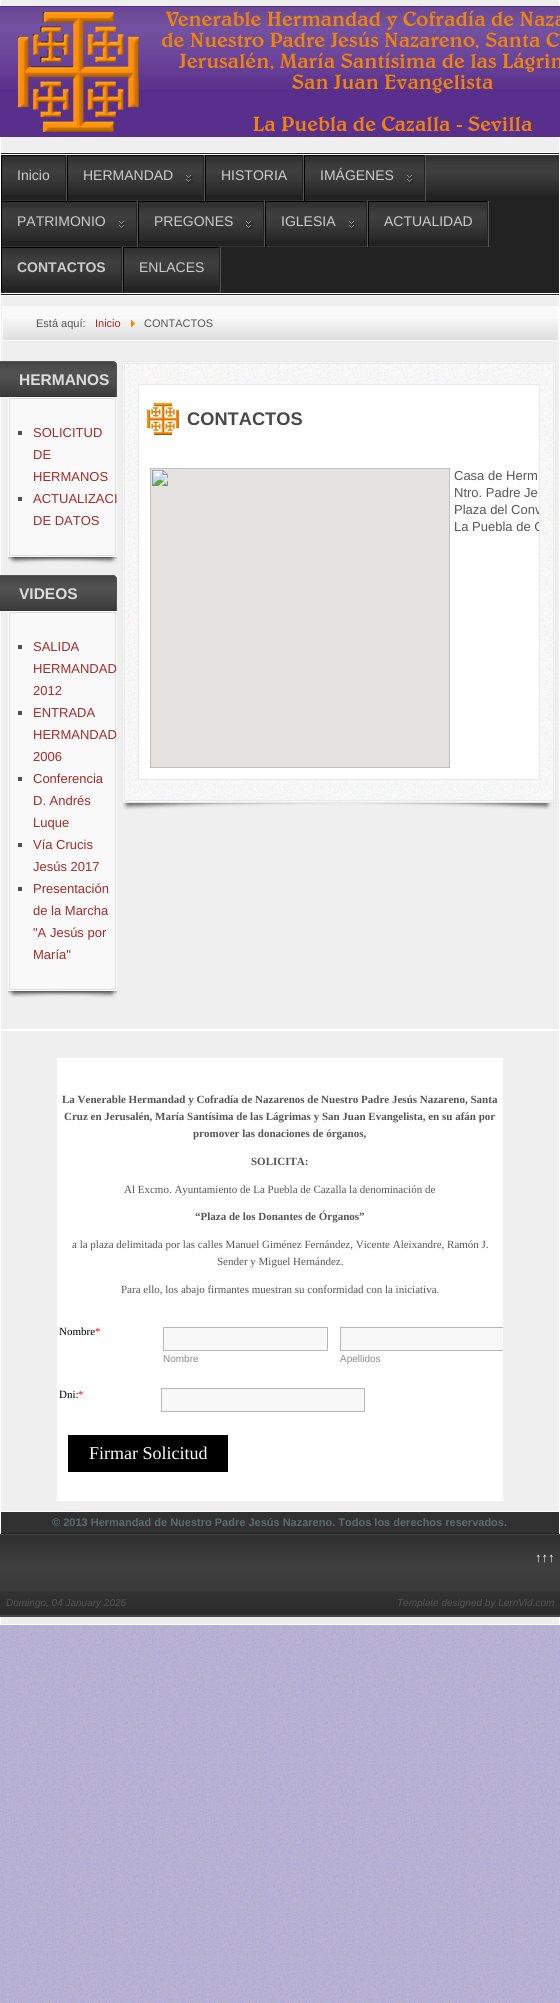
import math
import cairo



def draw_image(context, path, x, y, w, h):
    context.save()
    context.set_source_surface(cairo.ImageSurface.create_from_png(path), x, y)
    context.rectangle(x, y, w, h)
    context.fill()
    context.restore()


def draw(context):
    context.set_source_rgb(178 / 255, 171 / 255, 210 / 255)
    context.paint()
    draw_image(context, "images/1.png", 0, 1625, 560, 378)
    context.set_source_rgb(239 / 255, 239 / 255, 239 / 255)
    context.rectangle(0.5, -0.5, 559, 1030)
    context.fill_preserve()
    context.set_source_rgb(1, 1, 1)
    context.set_line_width(1)
    context.stroke()
    context.set_source_rgb(89 / 255, 47 / 255, 142 / 255)
    context.rectangle(0, 6, 560, 131)
    context.fill()
    draw_image(context, "images/2.png", 0, 7, 560, 82)
    draw_image(context, "images/3.png", 18, 10, 542, 122)
    context.set_source_rgb(34 / 255, 34 / 255, 34 / 255)
    context.rectangle(1, 153, 558, 142)
    context.fill()
    draw_image(context, "images/4.png", 426, 155, 133, 39)
    context.set_source_rgb(1, 1, 1)
    context.rectangle(1, 152, 558, 1)
    context.fill()
    context.rectangle(1, 154, 558, 1)
    context.fill()
    context.rectangle(1, 293, 558, 1)
    context.fill()
    context.rectangle(1, 295, 558, 1)
    context.fill()
    context.set_source_rgb(85 / 255, 85 / 255, 85 / 255)
    context.rectangle(66, 155, 1, 46)
    context.fill()
    draw_image(context, "images/5.png", 2, 156, 63, 39)
    context.set_source_rgb(0, 0, 0)
    context.rectangle(1, 155, 65, 1)
    context.fill()
    context.set_source_rgb(34 / 255, 34 / 255, 34 / 255)
    context.rectangle(65, 155, 1, 1)
    context.fill()
    context.set_source_rgb(51 / 255, 51 / 255, 51 / 255)
    context.rectangle(1, 200, 65, 1)
    context.fill()
    context.set_source_rgb(0, 0, 0)
    context.rectangle(1, 155, 1, 46)
    context.fill()
    context.set_source_rgb(85 / 255, 85 / 255, 85 / 255)
    context.rectangle(204, 155, 1, 46)
    context.fill()
    draw_image(context, "images/6.png", 68, 156, 135, 39)
    context.set_source_rgb(0, 0, 0)
    context.rectangle(67, 155, 137, 1)
    context.fill()
    context.set_source_rgb(34 / 255, 34 / 255, 34 / 255)
    context.rectangle(203, 155, 1, 1)
    context.fill()
    context.set_source_rgb(51 / 255, 51 / 255, 51 / 255)
    context.rectangle(67, 200, 137, 1)
    context.fill()
    context.set_source_rgb(0, 0, 0)
    context.rectangle(67, 155, 1, 46)
    context.fill()
    context.set_source_rgb(85 / 255, 85 / 255, 85 / 255)
    context.rectangle(303, 155, 1, 46)
    context.fill()
    draw_image(context, "images/7.png", 206, 156, 96, 39)
    context.set_source_rgb(0, 0, 0)
    context.rectangle(205, 155, 98, 1)
    context.fill()
    context.set_source_rgb(34 / 255, 34 / 255, 34 / 255)
    context.rectangle(302, 155, 1, 1)
    context.fill()
    context.set_source_rgb(51 / 255, 51 / 255, 51 / 255)
    context.rectangle(205, 200, 98, 1)
    context.fill()
    context.set_source_rgb(0, 0, 0)
    context.rectangle(205, 155, 1, 46)
    context.fill()
    context.set_source_rgb(85 / 255, 85 / 255, 85 / 255)
    context.rectangle(425, 155, 1, 46)
    context.fill()
    draw_image(context, "images/8.png", 305, 156, 119, 39)
    context.set_source_rgb(0, 0, 0)
    context.rectangle(304, 155, 121, 1)
    context.fill()
    context.set_source_rgb(34 / 255, 34 / 255, 34 / 255)
    context.rectangle(424, 155, 1, 1)
    context.fill()
    context.set_source_rgb(51 / 255, 51 / 255, 51 / 255)
    context.rectangle(304, 200, 121, 1)
    context.fill()
    context.set_source_rgb(0, 0, 0)
    context.rectangle(304, 155, 1, 46)
    context.fill()
    context.set_source_rgb(85 / 255, 85 / 255, 85 / 255)
    context.rectangle(137, 201, 1, 46)
    context.fill()
    draw_image(context, "images/9.png", 2, 202, 134, 39)
    context.set_source_rgb(0, 0, 0)
    context.rectangle(1, 201, 136, 1)
    context.fill()
    context.set_source_rgb(34 / 255, 34 / 255, 34 / 255)
    context.rectangle(136, 201, 1, 1)
    context.fill()
    context.set_source_rgb(51 / 255, 51 / 255, 51 / 255)
    context.rectangle(1, 246, 136, 1)
    context.fill()
    context.set_source_rgb(0, 0, 0)
    context.rectangle(1, 201, 1, 46)
    context.fill()
    context.set_source_rgb(85 / 255, 85 / 255, 85 / 255)
    context.rectangle(264, 201, 1, 46)
    context.fill()
    draw_image(context, "images/10.png", 139, 202, 124, 39)
    context.set_source_rgb(0, 0, 0)
    context.rectangle(138, 201, 126, 1)
    context.fill()
    context.set_source_rgb(34 / 255, 34 / 255, 34 / 255)
    context.rectangle(263, 201, 1, 1)
    context.fill()
    context.set_source_rgb(51 / 255, 51 / 255, 51 / 255)
    context.rectangle(138, 246, 126, 1)
    context.fill()
    context.set_source_rgb(0, 0, 0)
    context.rectangle(138, 201, 1, 46)
    context.fill()
    context.set_source_rgb(85 / 255, 85 / 255, 85 / 255)
    context.rectangle(367, 201, 1, 46)
    context.fill()
    draw_image(context, "images/11.png", 266, 202, 100, 39)
    context.set_source_rgb(0, 0, 0)
    context.rectangle(265, 201, 102, 1)
    context.fill()
    context.set_source_rgb(34 / 255, 34 / 255, 34 / 255)
    context.rectangle(366, 201, 1, 1)
    context.fill()
    context.set_source_rgb(51 / 255, 51 / 255, 51 / 255)
    context.rectangle(265, 246, 102, 1)
    context.fill()
    context.set_source_rgb(0, 0, 0)
    context.rectangle(265, 201, 1, 46)
    context.fill()
    context.set_source_rgb(85 / 255, 85 / 255, 85 / 255)
    context.rectangle(488, 201, 1, 46)
    context.fill()
    draw_image(context, "images/12.png", 369, 202, 118, 39)
    context.set_source_rgb(0, 0, 0)
    context.rectangle(368, 201, 120, 1)
    context.fill()
    context.set_source_rgb(34 / 255, 34 / 255, 34 / 255)
    context.rectangle(487, 201, 1, 1)
    context.fill()
    context.set_source_rgb(51 / 255, 51 / 255, 51 / 255)
    context.rectangle(368, 246, 120, 1)
    context.fill()
    context.set_source_rgb(0, 0, 0)
    context.rectangle(368, 201, 1, 46)
    context.fill()
    context.set_source_rgb(85 / 255, 85 / 255, 85 / 255)
    context.rectangle(122, 247, 1, 46)
    context.fill()
    draw_image(context, "images/13.png", 2, 248, 119, 39)
    context.set_source_rgb(0, 0, 0)
    context.rectangle(1, 247, 121, 1)
    context.fill()
    context.set_source_rgb(34 / 255, 34 / 255, 34 / 255)
    context.rectangle(121, 247, 1, 1)
    context.fill()
    context.set_source_rgb(51 / 255, 51 / 255, 51 / 255)
    context.rectangle(1, 292, 121, 1)
    context.fill()
    context.set_source_rgb(0, 0, 0)
    context.rectangle(1, 247, 1, 46)
    context.fill()
    context.set_source_rgb(85 / 255, 85 / 255, 85 / 255)
    context.rectangle(220, 247, 1, 46)
    context.fill()
    draw_image(context, "images/14.png", 124, 248, 95, 39)
    context.set_source_rgb(0, 0, 0)
    context.rectangle(123, 247, 97, 1)
    context.fill()
    context.set_source_rgb(34 / 255, 34 / 255, 34 / 255)
    context.rectangle(219, 247, 1, 1)
    context.fill()
    context.set_source_rgb(51 / 255, 51 / 255, 51 / 255)
    context.rectangle(123, 292, 97, 1)
    context.fill()
    context.set_source_rgb(0, 0, 0)
    context.rectangle(123, 247, 1, 46)
    context.fill()
    context.set_source_rgb(249 / 255, 249 / 255, 249 / 255)
    context.rectangle(3, 307, 555, 33)
    context.fill()
    draw_image(context, "images/15.png", 3, 319, 555, 21)
    context.rectangle(2.5, 306.5, 556, 34)
    context.set_source_rgb(1, 1, 1)
    context.stroke()
    draw_image(context, "images/16.png", 131, 320, 4, 7)
    context.set_source_rgb(56 / 255, 56 / 255, 56 / 255)
    context.new_path()
    context.move_to(0, 361)
    context.line_to(112, 361)
    context.curve_to(115, 361, 117, 363, 117, 366)
    context.line_to(117, 397)
    context.line_to(-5, 397)
    context.line_to(-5, 366)
    context.curve_to(-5, 363, -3, 361, 0, 361)
    context.close_path()
    context.fill()
    draw_image(context, "images/17.png", 0, 362, 117, 33)
    context.set_source_rgb(85 / 255, 85 / 255, 85 / 255)
    context.new_path()
    context.move_to(-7, 361)
    context.curve_to(-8, 361, -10, 362, -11, 362)
    context.line_to(-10, 363)
    context.line_to(-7, 362)
    context.line_to(112, 362)
    context.line_to(115, 363)
    context.line_to(116, 362)
    context.curve_to(115, 362, 114, 361, 112, 361)
    context.close_path()
    context.fill()
    context.new_path()
    context.move_to(116, 397)
    context.line_to(117, 397)
    context.line_to(117, 366)
    context.curve_to(117, 364.5, 116.5, 363, 115.5, 362.5)
    context.line_to(115, 363)
    context.curve_to(115.5, 364, 116, 365, 116, 366)
    context.close_path()
    context.fill()
    context.rectangle(8.5, 397.5, 108, 159)
    context.set_source_rgb(1, 1, 1)
    context.stroke()
    context.set_source_rgb(249 / 255, 249 / 255, 249 / 255)
    context.rectangle(9.5, 398.5, 106, 157)
    context.fill_preserve()
    context.set_source_rgb(221 / 255, 221 / 255, 221 / 255)
    context.stroke()
    context.set_source_rgb(80 / 255, 80 / 255, 80 / 255)
    context.rectangle(18, 431, 4, 4)
    context.fill()
    context.rectangle(18, 497, 4, 4)
    context.fill()
    draw_image(context, "images/18.png", 8, 557, 109, 7)
    draw_image(context, "images/19.png", 8, 557, 109, 7)
    context.set_source_rgb(56 / 255, 56 / 255, 56 / 255)
    context.new_path()
    context.move_to(0, 575)
    context.line_to(112, 575)
    context.curve_to(115, 575, 117, 577, 117, 580)
    context.line_to(117, 611)
    context.line_to(-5, 611)
    context.line_to(-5, 580)
    context.curve_to(-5, 577, -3, 575, 0, 575)
    context.close_path()
    context.fill()
    draw_image(context, "images/17.png", 0, 576, 117, 33)
    context.set_source_rgb(85 / 255, 85 / 255, 85 / 255)
    context.new_path()
    context.move_to(-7, 575)
    context.curve_to(-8, 575, -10, 576, -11, 576)
    context.line_to(-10, 577)
    context.line_to(-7, 576)
    context.line_to(112, 576)
    context.line_to(115, 577)
    context.line_to(116, 576)
    context.curve_to(115, 576, 114, 575, 112, 575)
    context.close_path()
    context.fill()
    context.new_path()
    context.move_to(116, 611)
    context.line_to(117, 611)
    context.line_to(117, 580)
    context.curve_to(117, 578.5, 116.5, 577, 115.5, 576.5)
    context.line_to(115, 577)
    context.curve_to(115.5, 578, 116, 579, 116, 580)
    context.close_path()
    context.fill()
    context.rectangle(8.5, 611.5, 108, 379)
    context.set_source_rgb(1, 1, 1)
    context.stroke()
    context.set_source_rgb(249 / 255, 249 / 255, 249 / 255)
    context.rectangle(9.5, 612.5, 106, 377)
    context.fill_preserve()
    context.set_source_rgb(221 / 255, 221 / 255, 221 / 255)
    context.stroke()
    context.set_source_rgb(80 / 255, 80 / 255, 80 / 255)
    context.rectangle(18, 645, 4, 4)
    context.fill()
    context.rectangle(18, 711, 4, 4)
    context.fill()
    context.rectangle(18, 777, 4, 4)
    context.fill()
    context.rectangle(18, 843, 4, 4)
    context.fill()
    context.rectangle(18, 887, 4, 4)
    context.fill()
    draw_image(context, "images/18.png", 8, 991, 109, 7)
    draw_image(context, "images/19.png", 8, 991, 109, 7)
    context.set_source_rgb(249 / 255, 249 / 255, 249 / 255)
    context.rectangle(123, 362, 432, 440)
    context.fill()
    draw_image(context, "images/20.png", 123, 362, 432, 440)
    context.rectangle(122.5, 361.5, 433, 441)
    context.set_source_rgb(233 / 255, 233 / 255, 233 / 255)
    context.stroke()
    context.rectangle(124.5, 363.5, 429, 437)
    context.stroke()
    context.set_source_rgb(1, 1, 1)
    context.rectangle(138.5, 384.5, 401, 395)
    context.fill_preserve()
    context.set_source_rgb(233 / 255, 233 / 255, 233 / 255)
    context.stroke()
    draw_image(context, "images/21.png", 147, 403, 32, 32)
    draw_image(context, "images/22.png", 150, 468, 300, 300)
    draw_image(context, "images/23.png", 122, 803, 214, 7)
    draw_image(context, "images/24.png", 338, 803, 214, 7)
    context.set_source_rgb(239 / 255, 239 / 255, 239 / 255)
    context.rectangle(0.5, 1030.5, 559, 594)
    context.fill_preserve()
    context.set_source_rgb(1, 1, 1)
    context.stroke()
    context.rectangle(57, 1058, 446, 443)
    context.fill()
    context.set_source_rgb(248 / 255, 248 / 255, 248 / 255)
    context.rectangle(163.5, 1327.5, 164, 23)
    context.fill_preserve()
    context.set_source_rgb(183 / 255, 183 / 255, 183 / 255)
    context.stroke()
    context.set_source_rgb(248 / 255, 248 / 255, 248 / 255)
    context.rectangle(341, 1328, 162, 22)
    context.fill()
    context.save()
    context.rectangle(1, 1031, 502, 480)
    context.clip()
    context.rectangle(340.5, 1327.5, 164, 23)
    context.set_source_rgb(183 / 255, 183 / 255, 183 / 255)
    context.stroke()
    context.restore()
    context.rectangle(161.5, 1388.5, 203, 23)
    context.fill_preserve()
    context.set_source_rgb(183 / 255, 183 / 255, 183 / 255)
    context.stroke()
    context.set_source_rgb(0, 0, 0)
    context.rectangle(68, 1435, 160, 37)
    context.fill()
    context.set_source_rgb(49 / 255, 49 / 255, 49 / 255)
    context.rectangle(1, 1512, 558, 21)
    context.fill()
    context.set_source_rgb(1, 1, 1)
    context.rectangle(1, 1511, 558, 1)
    context.fill()
    context.set_source_rgb(34 / 255, 34 / 255, 34 / 255)
    context.rectangle(1, 1533, 558, 1)
    context.fill()
    context.rectangle(0, 1535, 560, 80)
    context.fill()
    draw_image(context, "images/25.png", 0, 1535, 560, 80)
    context.set_source_rgb(68 / 255, 68 / 255, 68 / 255)
    context.rectangle(0, 1534, 560, 1)
    context.fill()
    context.rectangle(0, 1615, 560, 2)
    context.fill()
    context.select_font_face("Liberation Sans")
    context.set_font_size(14)
    context.set_source_rgb(204 / 255, 204 / 255, 204 / 255)
    context.move_to(17, 180)
    context.show_text("Inicio")
    context.move_to(83, 180)
    context.show_text("HERMANDAD")
    context.move_to(221, 180)
    context.show_text("HISTORIA")
    context.move_to(320, 180)
    context.show_text("IMÁGENES")
    context.move_to(17, 226)
    context.show_text("PATRIMONIO")
    context.move_to(154, 226)
    context.show_text("PREGONES")
    context.move_to(281, 226)
    context.show_text("IGLESIA")
    context.move_to(384, 226)
    context.show_text("ACTUALIDAD")
    context.select_font_face("Liberation Sans", cairo.FontSlant.NORMAL, cairo.FontWeight.BOLD)
    context.move_to(17, 272)
    context.show_text("CONTACTOS")
    context.select_font_face("Liberation Sans")
    context.move_to(139, 272)
    context.show_text("ENLACES")
    context.set_font_size(11)
    context.set_source_rgb(85 / 255, 85 / 255, 85 / 255)
    context.move_to(36, 327)
    context.show_text("Está aquí:")
    context.set_source_rgb(165 / 255, 42 / 255, 42 / 255)
    context.move_to(95, 327)
    context.show_text("Inicio")
    context.set_source_rgb(85 / 255, 85 / 255, 85 / 255)
    context.move_to(144, 327)
    context.show_text("CONTACTOS")
    context.select_font_face("Liberation Sans", cairo.FontSlant.NORMAL, cairo.FontWeight.BOLD)
    context.set_font_size(15.5)
    context.set_source_rgb(221 / 255, 221 / 255, 221 / 255)
    context.move_to(19, 385)
    context.show_text("HERMANOS")
    context.select_font_face("Liberation Sans")
    context.set_font_size(13)
    context.set_source_rgb(165 / 255, 42 / 255, 42 / 255)
    context.move_to(33, 437)
    context.show_text("SOLICITUD")
    context.move_to(33, 459)
    context.show_text("DE")
    context.move_to(33, 481)
    context.show_text("HERMANOS")
    context.move_to(33, 503)
    context.show_text("ACTUALIZACI")
    context.move_to(33, 525)
    context.show_text("DE DATOS")
    context.select_font_face("Liberation Sans", cairo.FontSlant.NORMAL, cairo.FontWeight.BOLD)
    context.set_font_size(15.5)
    context.set_source_rgb(221 / 255, 221 / 255, 221 / 255)
    context.move_to(19, 599)
    context.show_text("VIDEOS")
    context.select_font_face("Liberation Sans")
    context.set_font_size(13)
    context.set_source_rgb(165 / 255, 42 / 255, 42 / 255)
    context.move_to(33, 651)
    context.show_text("SALIDA")
    context.move_to(33, 673)
    context.show_text("HERMANDAD")
    context.move_to(33, 695)
    context.show_text("2012")
    context.move_to(33, 717)
    context.show_text("ENTRADA")
    context.move_to(33, 739)
    context.show_text("HERMANDAD")
    context.move_to(33, 761)
    context.show_text("2006")
    context.move_to(33, 783)
    context.show_text("Conferencia")
    context.move_to(33, 805)
    context.show_text("D. Andrés")
    context.move_to(33, 827)
    context.show_text("Luque")
    context.move_to(33, 849)
    context.show_text("Vía Crucis")
    context.move_to(33, 871)
    context.show_text("Jesús 2017")
    context.move_to(33, 893)
    context.show_text("Presentación")
    context.move_to(33, 915)
    context.show_text("de la Marcha")
    context.move_to(33, 937)
    context.show_text("\"A Jesús por")
    context.move_to(33, 959)
    context.show_text("María\"")
    context.select_font_face("Liberation Sans", cairo.FontSlant.NORMAL, cairo.FontWeight.BOLD)
    context.set_font_size(18.25)
    context.set_source_rgb(72 / 255, 72 / 255, 72 / 255)
    context.move_to(187, 425)
    context.show_text("CONTACTOS")
    context.select_font_face("Liberation Sans")
    context.set_font_size(13)
    context.set_source_rgb(85 / 255, 85 / 255, 85 / 255)
    context.move_to(454, 480)
    context.show_text("Casa de Herm")
    context.move_to(454, 497)
    context.show_text("Ntro. Padre Je")
    context.save()
    context.rectangle(139, 385, 400, 394)
    context.clip()
    context.move_to(454, 514)
    context.show_text("Plaza del Conv")
    context.move_to(454, 531)
    context.show_text("La Puebla de C")
    context.restore()
    context.select_font_face("Liberation Serif", cairo.FontSlant.NORMAL, cairo.FontWeight.BOLD)
    context.set_font_size(11)
    context.move_to(62, 1103)
    context.show_text("La Venerable Hermandad y Cofradía de Nazarenos de Nuestro Padre Jesús Nazareno, Santa")
    context.move_to(64, 1120)
    context.show_text("Cruz en Jerusalén, María Santísima de las Lágrimas y San Juan Evangelista, en su afán por")
    context.move_to(193, 1137)
    context.show_text("promover las donaciones de órganos,")
    context.move_to(251, 1165)
    context.show_text("SOLICITA:")
    context.select_font_face("Liberation Serif")
    context.move_to(124, 1193)
    context.show_text("Al Excmo. Ayuntamiento de La Puebla de Cazalla la denominación de")
    context.select_font_face("Liberation Serif", cairo.FontSlant.NORMAL, cairo.FontWeight.BOLD)
    context.move_to(195, 1220)
    context.show_text("“Plaza de los Donantes de Órganos”")
    context.select_font_face("Liberation Serif")
    context.move_to(72, 1248)
    context.show_text("a la plaza delimitada por las calles Manuel Giménez Fernández, Vicente Aleixandre, Ramón J.")
    context.move_to(217, 1265)
    context.show_text("Sender y Miguel Hernández.")
    context.move_to(121, 1293)
    context.show_text("Para ello, los abajo firmantes muestran su conformidad con la iniciativa.")
    context.set_source_rgb(0, 0, 0)
    context.move_to(59, 1335)
    context.show_text("Nombre")
    context.set_source_rgb(1, 0, 0)
    context.move_to(95, 1335)
    context.show_text("*")
    context.select_font_face("Liberation Sans")
    context.set_font_size(10)
    context.set_source_rgb(138 / 255, 138 / 255, 138 / 255)
    context.move_to(163, 1362)
    context.show_text("Nombre")
    context.move_to(340, 1362)
    context.show_text("Apellidos")
    context.select_font_face("Liberation Serif")
    context.set_font_size(11)
    context.set_source_rgb(0, 0, 0)
    context.move_to(59, 1398)
    context.show_text("Dni:")
    context.set_source_rgb(1, 0, 0)
    context.move_to(78, 1398)
    context.show_text("*")
    context.set_font_size(18)
    context.set_source_rgb(1, 1, 1)
    context.move_to(89, 1459)
    context.show_text("Firmar Solicitud")
    context.select_font_face("Liberation Sans", cairo.FontSlant.NORMAL, cairo.FontWeight.BOLD)
    context.set_font_size(11)
    context.set_source_rgb(91 / 255, 108 / 255, 113 / 255)
    context.move_to(52, 1526)
    context.show_text("© 2013 Hermandad de Nuestro Padre Jesús Nazareno. Todos los derechos reservados.")
    context.select_font_face("Liberation Sans")
    context.set_font_size(13)
    context.set_source_rgb(1, 1, 1)
    context.move_to(535, 1562)
    context.show_text("↑↑↑")
    context.select_font_face("Liberation Sans", cairo.FontSlant.ITALIC)
    context.set_font_size(10)
    context.set_source_rgb(85 / 255, 85 / 255, 85 / 255)
    context.move_to(6, 1606)
    context.show_text("Domingo, 04 January 2026")
    context.move_to(397, 1606)
    context.show_text("Template designed by LernVid.com")


surface = cairo.ImageSurface(cairo.Format.RGB24, 560, 2003)
context = cairo.Context(surface)
options = cairo.FontOptions()
options.set_hint_metrics(cairo.HintMetrics.OFF)
options.set_hint_style(cairo.HintStyle.NONE)
context.set_font_options(options)
context.set_miter_limit(4)
draw(context)
surface.write_to_png("out.png")
